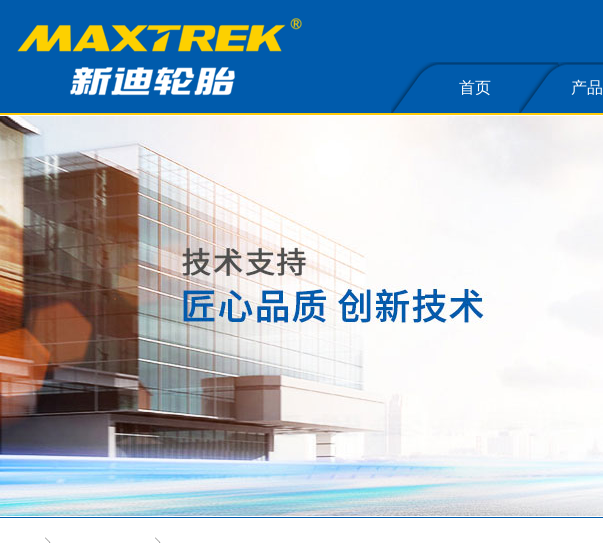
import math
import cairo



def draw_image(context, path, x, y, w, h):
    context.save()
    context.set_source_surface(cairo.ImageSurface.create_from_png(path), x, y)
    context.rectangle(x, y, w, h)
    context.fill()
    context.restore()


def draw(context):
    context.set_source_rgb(1, 1, 1)
    context.paint()
    context.set_source_rgb(0, 91 / 255, 172 / 255)
    context.rectangle(0, 0, 603, 113)
    context.fill()
    context.set_source_rgb(1, 202 / 255, 8 / 255)
    context.rectangle(0, 113, 603, 2)
    context.fill()
    draw_image(context, "images/1.png", 17, 18, 285, 78)
    draw_image(context, "images/2.png", 391, 62, 168, 51)
    draw_image(context, "images/3.png", 519, 62, 84, 51)
    draw_image(context, "images/4.png", 0, 116, 603, 400)
    context.set_source_rgb(0, 91 / 255, 172 / 255)
    context.rectangle(0, 517, 603, 1)
    context.fill()
    draw_image(context, "images/5.png", 45, 537, 6, 6)
    draw_image(context, "images/5.png", 155, 537, 6, 6)
    context.select_font_face("WenQuanYi Zen Hei Medium")
    context.set_font_size(16)
    context.set_source_rgb(1, 1, 1)
    context.move_to(459, 93)
    context.show_text("首页")
    context.move_to(571, 93)
    context.show_text("产品")


surface = cairo.ImageSurface(cairo.Format.RGB24, 603, 543)
context = cairo.Context(surface)
options = cairo.FontOptions()
options.set_hint_metrics(cairo.HintMetrics.OFF)
options.set_hint_style(cairo.HintStyle.NONE)
context.set_font_options(options)
context.set_miter_limit(4)
draw(context)
surface.write_to_png("out.png")
